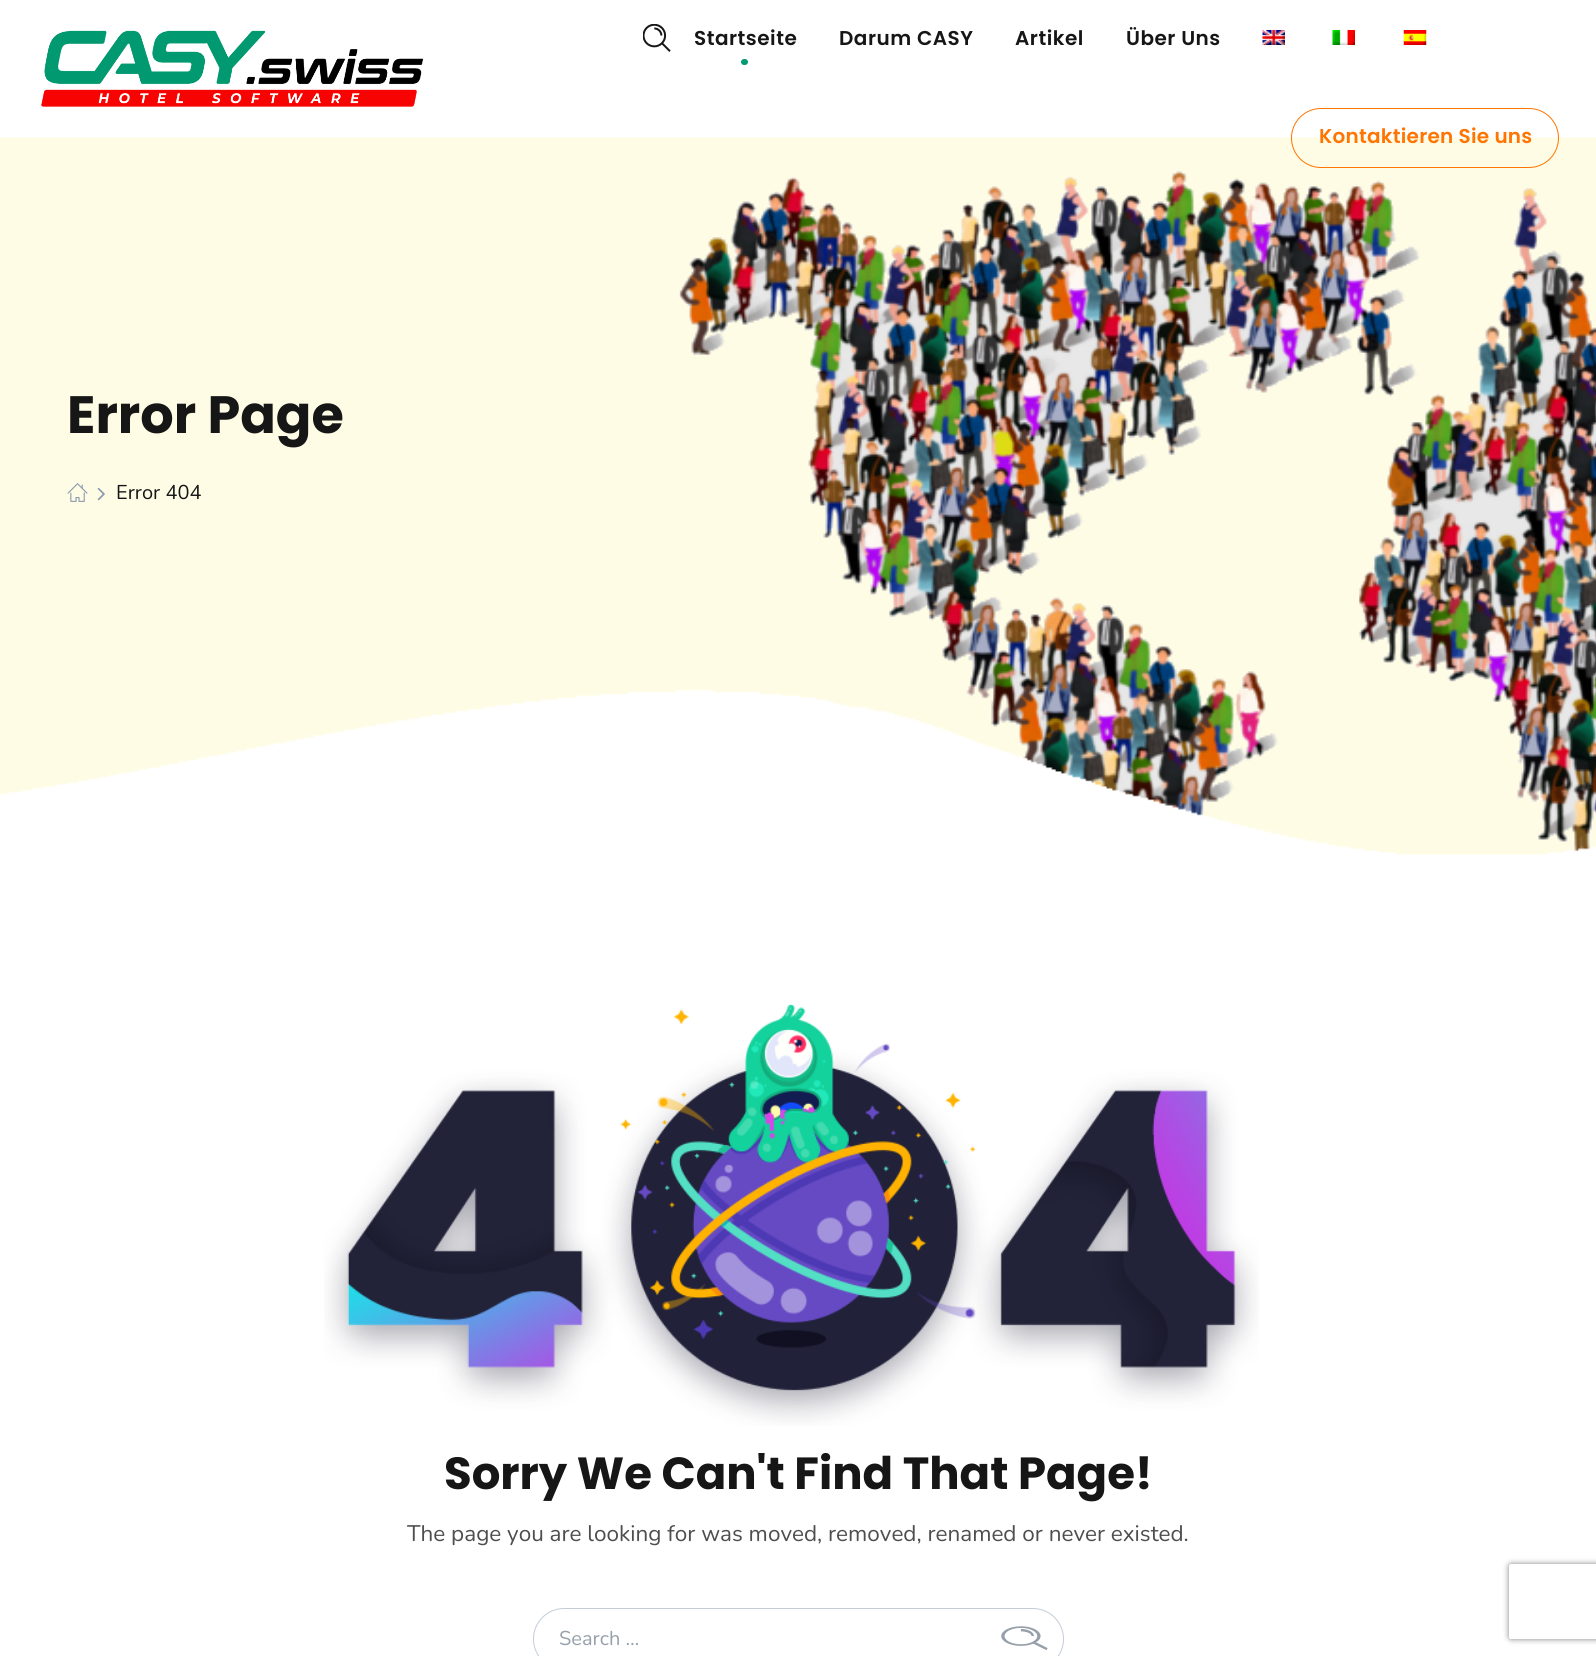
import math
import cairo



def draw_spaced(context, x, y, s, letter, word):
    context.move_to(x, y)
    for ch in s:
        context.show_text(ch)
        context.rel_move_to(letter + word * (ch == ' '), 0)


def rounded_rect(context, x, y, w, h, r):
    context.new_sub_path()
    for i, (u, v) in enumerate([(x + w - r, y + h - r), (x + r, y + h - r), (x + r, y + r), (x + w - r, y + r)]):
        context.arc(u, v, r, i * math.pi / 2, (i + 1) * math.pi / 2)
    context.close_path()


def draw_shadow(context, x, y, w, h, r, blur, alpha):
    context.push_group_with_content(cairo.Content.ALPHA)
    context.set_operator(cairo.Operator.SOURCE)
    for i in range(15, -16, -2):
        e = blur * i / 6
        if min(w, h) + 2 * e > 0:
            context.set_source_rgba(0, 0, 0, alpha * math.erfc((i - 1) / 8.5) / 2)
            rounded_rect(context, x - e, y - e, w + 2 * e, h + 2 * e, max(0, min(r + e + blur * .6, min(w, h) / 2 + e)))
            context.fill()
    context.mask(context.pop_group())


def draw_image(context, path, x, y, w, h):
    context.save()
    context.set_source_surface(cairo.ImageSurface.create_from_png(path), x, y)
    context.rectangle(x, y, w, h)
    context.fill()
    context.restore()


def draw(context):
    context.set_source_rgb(1, 1, 1)
    context.paint()
    draw_image(context, "images/1.png", 41, 30, 382, 77)
    draw_image(context, "images/2.png", 643, 24, 28, 28)
    draw_image(context, "images/3.png", 1262, 30, 23, 15)
    draw_image(context, "images/4.png", 1332, 30, 23, 15)
    draw_image(context, "images/5.png", 1403, 30, 24, 15)
    context.set_source_rgb(0, 153 / 255, 112 / 255)
    rounded_rect(context, 741, 59, 7, 6, 3)
    context.fill()
    draw_image(context, "images/6.png", 0, 137, 1596, 718)
    rounded_rect(context, 1291.5, 108.5, 267, 59, 29.5)
    context.set_source_rgb(1, 117 / 255, 2 / 255)
    context.set_line_width(1)
    context.stroke()
    draw_image(context, "images/7.png", 67, 483, 21, 19)
    draw_image(context, "images/8.png", 97, 487, 8, 14)
    draw_image(context, "images/9.png", 324, 1004, 935, 422)
    rounded_rect(context, 533.5, 1608.5, 530, 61, 30.5)
    context.set_source_rgb(196 / 255, 205 / 255, 215 / 255)
    context.stroke()
    draw_image(context, "images/10.png", 1001, 1626, 47, 25)
    context.save()
    context.set_fill_rule(cairo.FillRule.EVEN_ODD)
    context.new_path()
    context.move_to(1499, 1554)
    context.line_to(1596, 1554)
    context.line_to(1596, 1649)
    context.line_to(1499, 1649)
    context.close_path()
    context.move_to(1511.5, 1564)
    context.line_to(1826.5, 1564)
    context.curve_to(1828, 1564, 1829, 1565, 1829, 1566.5)
    context.line_to(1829, 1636.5)
    context.curve_to(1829, 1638, 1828, 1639, 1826.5, 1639)
    context.line_to(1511.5, 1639)
    context.curve_to(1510, 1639, 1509, 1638, 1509, 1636.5)
    context.line_to(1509, 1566.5)
    context.curve_to(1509, 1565, 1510, 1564, 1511.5, 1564)
    context.close_path()
    context.clip()
    context.set_source_rgb(128 / 255, 128 / 255, 128 / 255)
    draw_shadow(context, 1509, 1564, 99, 75, 2.5, 3, 1)
    context.restore()
    context.select_font_face("Poppins SemiBold")
    context.set_font_size(20)
    context.set_source_rgb(22 / 255, 22 / 255, 22 / 255)
    draw_spaced(context, 694, 45, "Startseite", 0.5, 0)
    draw_spaced(context, 839, 45, "Darum CASY", 0.5, 0)
    draw_spaced(context, 1015, 45, "Artikel", 0.5, 0)
    draw_spaced(context, 1126, 45, "Über Uns", 0.5, 0)
    context.set_source_rgb(1, 117 / 255, 2 / 255)
    draw_spaced(context, 1319, 143, "Kontaktieren Sie uns", 0.25, 0)
    context.select_font_face("Poppins", cairo.FontSlant.NORMAL, cairo.FontWeight.BOLD)
    context.set_font_size(52.5)
    context.set_source_rgb(22 / 255, 22 / 255, 22 / 255)
    context.move_to(67, 433)
    context.show_text("Error Page")
    context.select_font_face("Nunito")
    context.set_font_size(20)
    context.move_to(116, 499)
    context.show_text("Error 404")
    context.select_font_face("Poppins", cairo.FontSlant.NORMAL, cairo.FontWeight.BOLD)
    context.set_font_size(45)
    context.move_to(444, 1489)
    context.show_text("Sorry We Can't Find That Page!")
    context.select_font_face("Nunito")
    context.set_font_size(22.5)
    context.set_source_rgb(79 / 255, 78 / 255, 78 / 255)
    context.move_to(407, 1541)
    context.show_text("The page you are looking for was moved, removed, renamed or never existed.")
    context.set_font_size(20)
    context.set_source_rgb(151 / 255, 160 / 255, 170 / 255)
    context.move_to(559, 1645)
    context.show_text("Search …")


surface = cairo.ImageSurface(cairo.Format.RGB24, 1596, 1656)
context = cairo.Context(surface)
options = cairo.FontOptions()
options.set_hint_metrics(cairo.HintMetrics.OFF)
options.set_hint_style(cairo.HintStyle.NONE)
context.set_font_options(options)
context.set_miter_limit(4)
draw(context)
surface.write_to_png("out.png")
